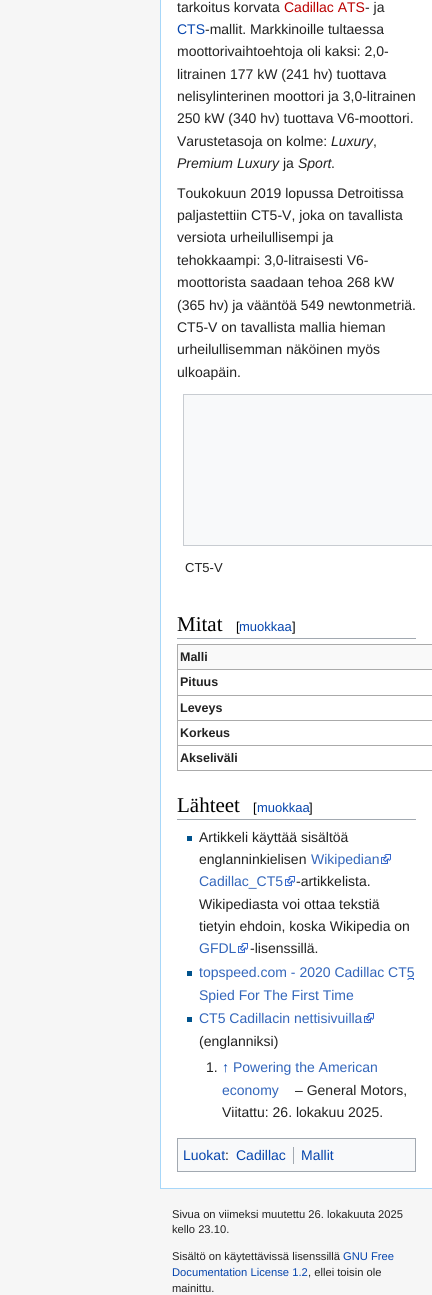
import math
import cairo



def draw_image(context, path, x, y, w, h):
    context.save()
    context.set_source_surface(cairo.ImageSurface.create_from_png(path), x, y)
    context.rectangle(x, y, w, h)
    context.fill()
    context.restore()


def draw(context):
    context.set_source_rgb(246 / 255, 246 / 255, 246 / 255)
    context.paint()
    context.set_source_rgb(1, 1, 1)
    context.rectangle(161, 0, 271, 1188)
    context.fill()
    context.set_source_rgb(167 / 255, 215 / 255, 249 / 255)
    context.rectangle(160, 1188, 272, 1)
    context.fill()
    context.rectangle(160, 0, 1, 1189)
    context.fill()
    context.set_source_rgb(248 / 255, 249 / 255, 250 / 255)
    context.rectangle(183.5, 394.5, 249, 151)
    context.fill_preserve()
    context.set_source_rgb(200 / 255, 204 / 255, 209 / 255)
    context.set_line_width(1)
    context.stroke()
    context.set_source_rgb(162 / 255, 169 / 255, 177 / 255)
    context.rectangle(177, 638, 239, 1)
    context.fill()
    context.set_source_rgb(249 / 255, 249 / 255, 249 / 255)
    context.rectangle(178, 645, 254, 24)
    context.fill()
    context.set_source_rgb(170 / 255, 170 / 255, 170 / 255)
    context.rectangle(177, 644, 255, 1)
    context.fill()
    context.rectangle(177, 770, 255, 1)
    context.fill()
    context.rectangle(177, 644, 1, 127)
    context.fill()
    context.rectangle(177, 669, 255, 1)
    context.fill()
    context.rectangle(177, 695, 255, 1)
    context.fill()
    context.rectangle(177, 720, 255, 1)
    context.fill()
    context.rectangle(177, 745, 255, 1)
    context.fill()
    context.set_source_rgb(162 / 255, 169 / 255, 177 / 255)
    context.rectangle(177, 819, 239, 1)
    context.fill()
    context.set_source_rgb(0, 82 / 255, 140 / 255)
    context.rectangle(187, 836, 5, 5)
    context.fill()
    draw_image(context, "images/1.png", 381, 854, 10, 10)
    draw_image(context, "images/1.png", 285, 876, 10, 10)
    draw_image(context, "images/1.png", 238, 943, 10, 10)
    context.rectangle(187, 971, 5, 5)
    context.fill()
    draw_image(context, "images/2.png", 407, 978, 7, 2)
    context.rectangle(187, 1017, 5, 5)
    context.fill()
    draw_image(context, "images/1.png", 364, 1013, 10, 10)
    context.set_source_rgb(248 / 255, 249 / 255, 250 / 255)
    context.rectangle(177.5, 1138.5, 238, 33)
    context.fill_preserve()
    context.set_source_rgb(162 / 255, 169 / 255, 177 / 255)
    context.stroke()
    context.rectangle(293, 1147, 1, 17)
    context.fill()
    context.select_font_face("Liberation Sans")
    context.set_font_size(14)
    context.set_source_rgb(34 / 255, 34 / 255, 34 / 255)
    context.move_to(177, 12)
    context.show_text("tarkoitus korvata")
    context.set_source_rgb(186 / 255, 0, 0)
    context.move_to(284, 12)
    context.show_text("Cadillac ATS")
    context.set_source_rgb(34 / 255, 34 / 255, 34 / 255)
    context.move_to(365, 12)
    context.show_text("- ja")
    context.set_source_rgb(6 / 255, 69 / 255, 173 / 255)
    context.move_to(177, 34)
    context.show_text("CTS")
    context.set_source_rgb(34 / 255, 34 / 255, 34 / 255)
    context.move_to(205, 34)
    context.show_text("-mallit. Markkinoille tultaessa")
    context.move_to(177, 56)
    context.show_text("moottorivaihtoehtoja oli kaksi: 2,0-")
    context.move_to(177, 79)
    context.show_text("litrainen 177 kW (241 hv) tuottava")
    context.move_to(177, 101)
    context.show_text("nelisylinterinen moottori ja 3,0-litrainen")
    context.move_to(177, 123)
    context.show_text("250 kW (340 hv) tuottava V6-moottori.")
    context.move_to(177, 146)
    context.show_text("Varustetasoja on kolme:")
    context.select_font_face("Liberation Sans", cairo.FontSlant.ITALIC)
    context.move_to(331, 146)
    context.show_text("Luxury")
    context.select_font_face("Liberation Sans")
    context.move_to(373, 146)
    context.show_text(",")
    context.select_font_face("Liberation Sans", cairo.FontSlant.ITALIC)
    context.move_to(177, 168)
    context.show_text("Premium Luxury")
    context.select_font_face("Liberation Sans")
    context.move_to(283, 168)
    context.show_text("ja")
    context.select_font_face("Liberation Sans", cairo.FontSlant.ITALIC)
    context.move_to(298, 168)
    context.show_text("Sport")
    context.select_font_face("Liberation Sans")
    context.move_to(331, 168)
    context.show_text(".")
    context.move_to(177, 198)
    context.show_text("Toukokuun 2019 lopussa Detroitissa")
    context.move_to(177, 220)
    context.show_text("paljastettiin CT5-V, joka on tavallista")
    context.move_to(177, 242)
    context.show_text("versiota urheilullisempi ja")
    context.move_to(177, 265)
    context.show_text("tehokkaampi: 3,0-litraisesti V6-")
    context.move_to(177, 287)
    context.show_text("moottorista saadaan tehoa 268 kW")
    context.move_to(177, 310)
    context.show_text("(365 hv) ja vääntöä 549 newtonmetriä.")
    context.move_to(177, 332)
    context.show_text("CT5-V on tavallista mallia hieman")
    context.move_to(177, 354)
    context.show_text("urheilullisemman näköinen myös")
    context.move_to(177, 377)
    context.show_text("ulkoapäin.")
    context.set_font_size(13)
    context.move_to(185, 572)
    context.show_text("CT5-V")
    context.select_font_face("Liberation Serif")
    context.set_font_size(21)
    context.set_source_rgb(0, 0, 0)
    context.move_to(177, 631)
    context.show_text("Mitat")
    context.select_font_face("Liberation Sans")
    context.set_font_size(13)
    context.move_to(236, 631)
    context.show_text("[")
    context.set_source_rgb(6 / 255, 69 / 255, 173 / 255)
    context.move_to(239, 631)
    context.show_text("muokkaa")
    context.set_source_rgb(0, 0, 0)
    context.move_to(292, 631)
    context.show_text("]")
    context.select_font_face("Liberation Sans", cairo.FontSlant.NORMAL, cairo.FontWeight.BOLD)
    context.set_font_size(12.5)
    context.set_source_rgb(34 / 255, 34 / 255, 34 / 255)
    context.move_to(180, 661)
    context.show_text("Malli")
    context.move_to(180, 686)
    context.show_text("Pituus")
    context.move_to(180, 712)
    context.show_text("Leveys")
    context.move_to(180, 737)
    context.show_text("Korkeus")
    context.move_to(180, 762)
    context.show_text("Akseliväli")
    context.select_font_face("Liberation Serif")
    context.set_font_size(21)
    context.set_source_rgb(0, 0, 0)
    context.move_to(177, 812)
    context.show_text("Lähteet")
    context.select_font_face("Liberation Sans")
    context.set_font_size(13)
    context.move_to(253, 812)
    context.show_text("[")
    context.set_source_rgb(6 / 255, 69 / 255, 173 / 255)
    context.move_to(257, 812)
    context.show_text("muokkaa")
    context.set_source_rgb(0, 0, 0)
    context.move_to(309, 812)
    context.show_text("]")
    context.set_font_size(14)
    context.set_source_rgb(34 / 255, 34 / 255, 34 / 255)
    context.move_to(199, 842)
    context.show_text("Artikkeli käyttää sisältöä")
    context.move_to(199, 864)
    context.show_text("englanninkielisen")
    context.set_source_rgb(51 / 255, 102 / 255, 187 / 255)
    context.move_to(311, 864)
    context.show_text("Wikipedian")
    context.move_to(199, 886)
    context.show_text("Cadillac_CT5")
    context.set_source_rgb(34 / 255, 34 / 255, 34 / 255)
    context.move_to(296, 886)
    context.show_text("-artikkelista.")
    context.move_to(199, 909)
    context.show_text("Wikipediasta voi ottaa tekstiä")
    context.move_to(199, 931)
    context.show_text("tietyin ehdoin, koska Wikipedia on")
    context.set_source_rgb(51 / 255, 102 / 255, 187 / 255)
    context.move_to(199, 953)
    context.show_text("GFDL")
    context.set_source_rgb(34 / 255, 34 / 255, 34 / 255)
    context.move_to(250, 953)
    context.show_text("-lisenssillä.")
    context.set_source_rgb(51 / 255, 102 / 255, 187 / 255)
    context.move_to(199, 977)
    context.show_text("topspeed.com - 2020 Cadillac CT5")
    context.move_to(199, 1000)
    context.show_text("Spied For The First Time")
    context.move_to(199, 1023)
    context.show_text("CT5 Cadillacin nettisivuilla")
    context.set_source_rgb(34 / 255, 34 / 255, 34 / 255)
    context.move_to(199, 1046)
    context.show_text("(englanniksi)")
    context.move_to(206, 1072)
    context.show_text("1.")
    context.set_source_rgb(6 / 255, 69 / 255, 173 / 255)
    context.move_to(222, 1072)
    context.show_text("↑")
    context.set_source_rgb(51 / 255, 102 / 255, 187 / 255)
    context.move_to(233, 1072)
    context.show_text("Powering the American")
    context.move_to(222, 1095)
    context.show_text("economy")
    context.set_source_rgb(34 / 255, 34 / 255, 34 / 255)
    context.move_to(295, 1095)
    context.show_text("– General Motors,")
    context.move_to(222, 1117)
    context.show_text("Viitattu: 26. lokakuu 2025.")
    context.set_source_rgb(6 / 255, 69 / 255, 173 / 255)
    context.move_to(183, 1160)
    context.show_text("Luokat")
    context.set_source_rgb(34 / 255, 34 / 255, 34 / 255)
    context.move_to(225, 1160)
    context.show_text(":")
    context.set_source_rgb(6 / 255, 69 / 255, 173 / 255)
    context.move_to(236, 1160)
    context.show_text("Cadillac")
    context.move_to(301, 1160)
    context.show_text("Mallit")
    context.set_font_size(11.2)
    context.set_source_rgb(34 / 255, 34 / 255, 34 / 255)
    context.move_to(172, 1218)
    context.show_text("Sivua on viimeksi muutettu 26. lokakuuta 2025")
    context.move_to(172, 1233)
    context.show_text("kello 23.10.")
    context.move_to(172, 1260)
    context.show_text("Sisältö on käytettävissä lisenssillä")
    context.set_source_rgb(6 / 255, 69 / 255, 173 / 255)
    context.move_to(343, 1260)
    context.show_text("GNU Free")
    context.move_to(172, 1276)
    context.show_text("Documentation License 1.2")
    context.set_source_rgb(34 / 255, 34 / 255, 34 / 255)
    context.move_to(308, 1276)
    context.show_text(", ellei toisin ole")
    context.move_to(172, 1292)
    context.show_text("mainittu.")


surface = cairo.ImageSurface(cairo.Format.RGB24, 432, 1295)
context = cairo.Context(surface)
options = cairo.FontOptions()
options.set_hint_metrics(cairo.HintMetrics.OFF)
options.set_hint_style(cairo.HintStyle.NONE)
context.set_font_options(options)
context.set_miter_limit(4)
draw(context)
surface.write_to_png("out.png")
